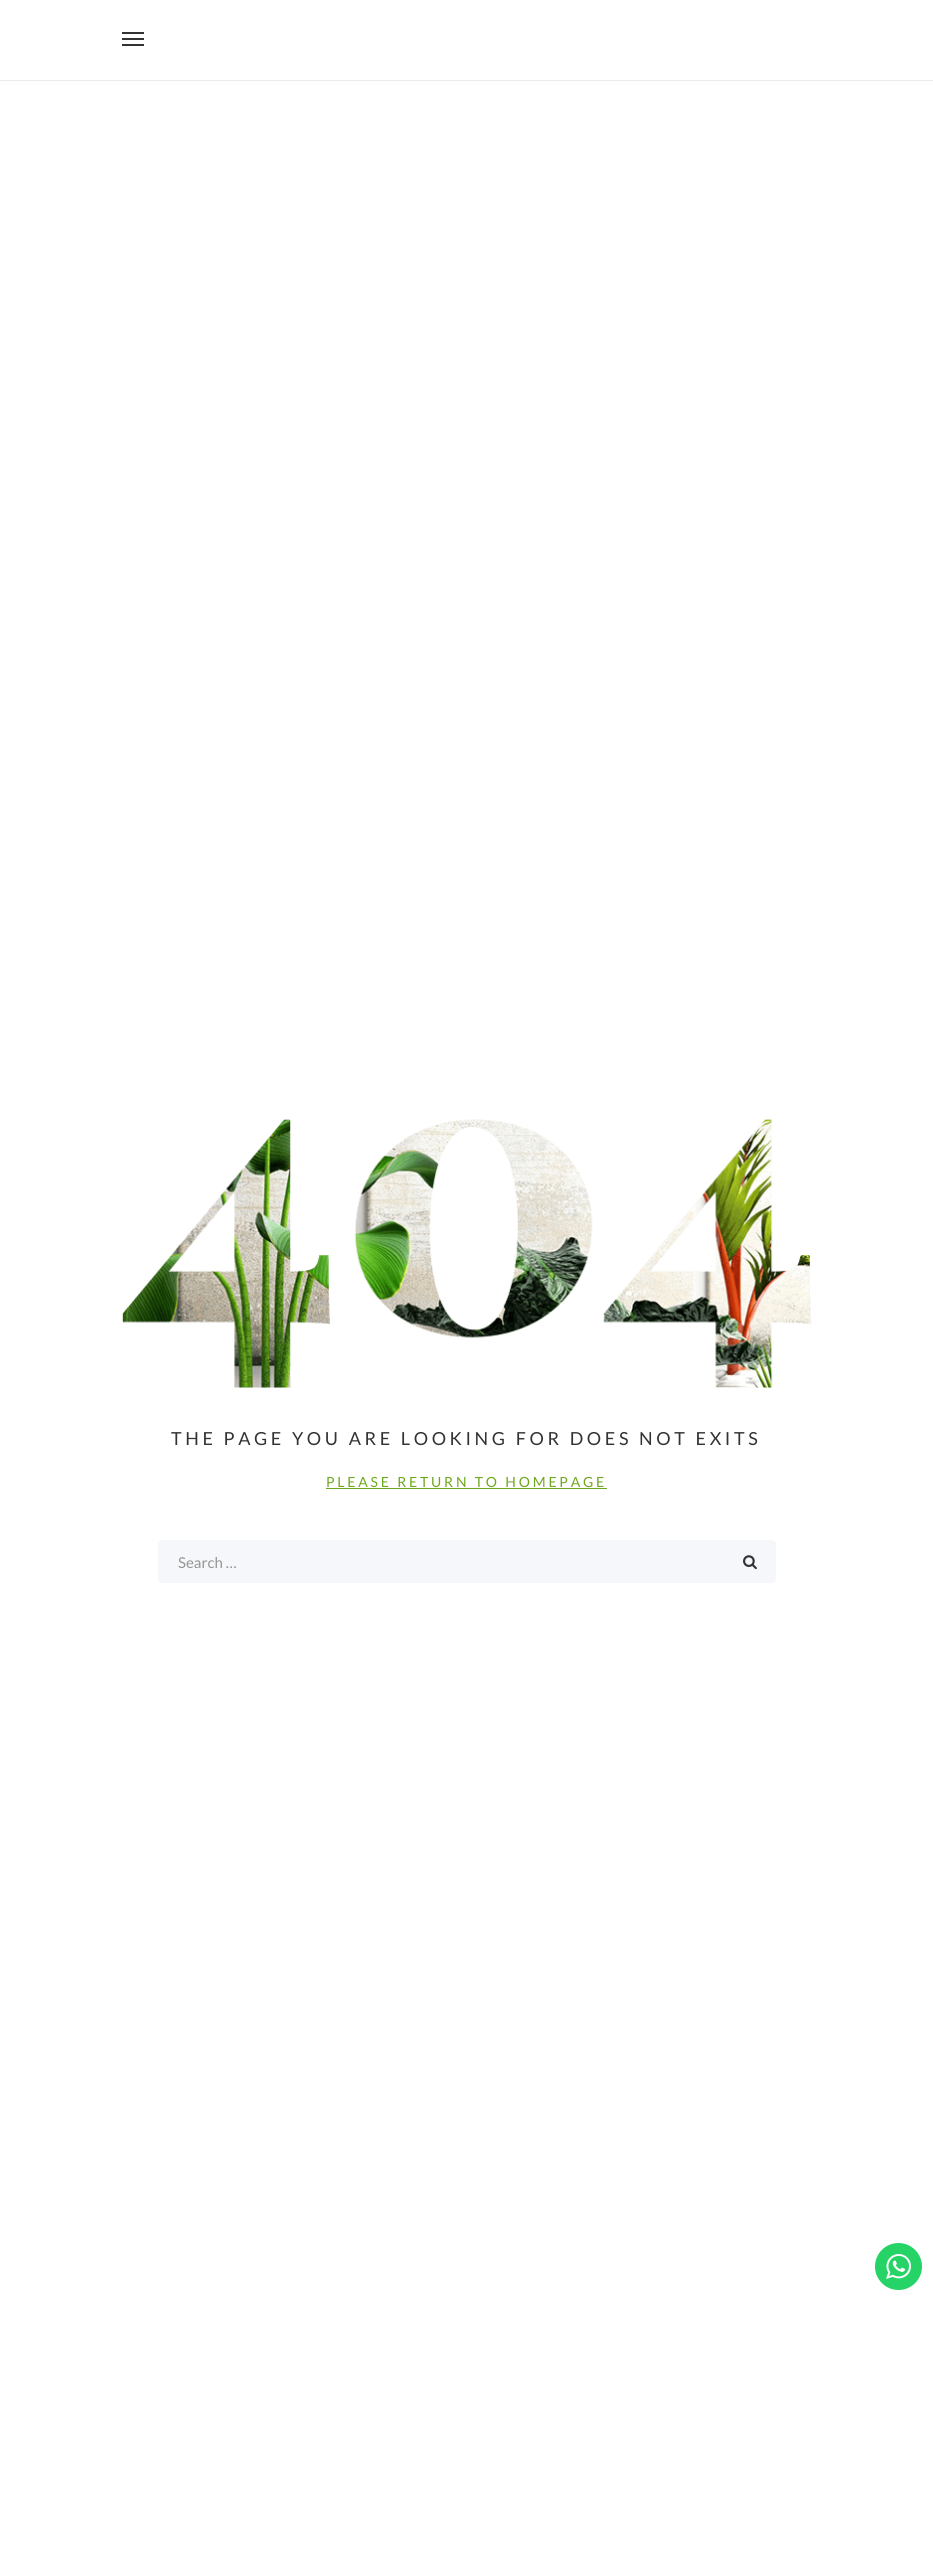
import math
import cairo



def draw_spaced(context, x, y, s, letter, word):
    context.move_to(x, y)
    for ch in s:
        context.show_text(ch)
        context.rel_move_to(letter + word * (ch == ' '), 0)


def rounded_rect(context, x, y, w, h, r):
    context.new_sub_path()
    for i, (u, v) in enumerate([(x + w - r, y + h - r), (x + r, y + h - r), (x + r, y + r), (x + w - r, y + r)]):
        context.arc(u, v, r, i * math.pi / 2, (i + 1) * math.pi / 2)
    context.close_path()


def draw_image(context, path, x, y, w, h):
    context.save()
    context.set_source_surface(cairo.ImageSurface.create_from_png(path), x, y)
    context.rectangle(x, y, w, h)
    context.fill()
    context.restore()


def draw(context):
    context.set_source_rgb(1, 1, 1)
    context.paint()
    context.set_source_rgb(235 / 255, 235 / 255, 235 / 255)
    context.rectangle(0, 80, 933, 1)
    context.fill()
    context.set_source_rgb(51 / 255, 51 / 255, 51 / 255)
    context.rectangle(122, 38, 22, 2)
    context.fill()
    context.rectangle(122, 32, 22, 2)
    context.fill()
    context.rectangle(122, 44, 22, 2)
    context.fill()
    draw_image(context, "images/1.png", 122, 1119, 690, 269)
    context.set_source_rgb(110 / 255, 168 / 255, 32 / 255)
    context.rectangle(326, 1488, 281, 1)
    context.fill()
    context.set_source_rgb(246 / 255, 247 / 255, 251 / 255)
    rounded_rect(context, 158, 1540, 618, 43, 4)
    context.fill()
    draw_image(context, "images/2.png", 743, 1555, 14, 15)
    draw_image(context, "images/3.png", 875, 2243, 47, 47)
    context.select_font_face("Lato")
    context.set_font_size(18)
    context.set_source_rgb(51 / 255, 51 / 255, 51 / 255)
    draw_spaced(context, 171, 1445, "THE PAGE YOU ARE LOOKING FOR DOES NOT EXITS", 3.6, 0)
    context.set_font_size(14)
    context.set_source_rgb(110 / 255, 168 / 255, 32 / 255)
    draw_spaced(context, 326, 1487, "PLEASE RETURN TO HOMEPAGE", 2.8, 0)
    context.set_font_size(15)
    context.set_source_rgb(149 / 255, 149 / 255, 149 / 255)
    context.move_to(178, 1568)
    context.show_text("Search …")


surface = cairo.ImageSurface(cairo.Format.RGB24, 933, 2557)
context = cairo.Context(surface)
options = cairo.FontOptions()
options.set_hint_metrics(cairo.HintMetrics.OFF)
options.set_hint_style(cairo.HintStyle.NONE)
context.set_font_options(options)
context.set_miter_limit(4)
draw(context)
surface.write_to_png("out.png")
